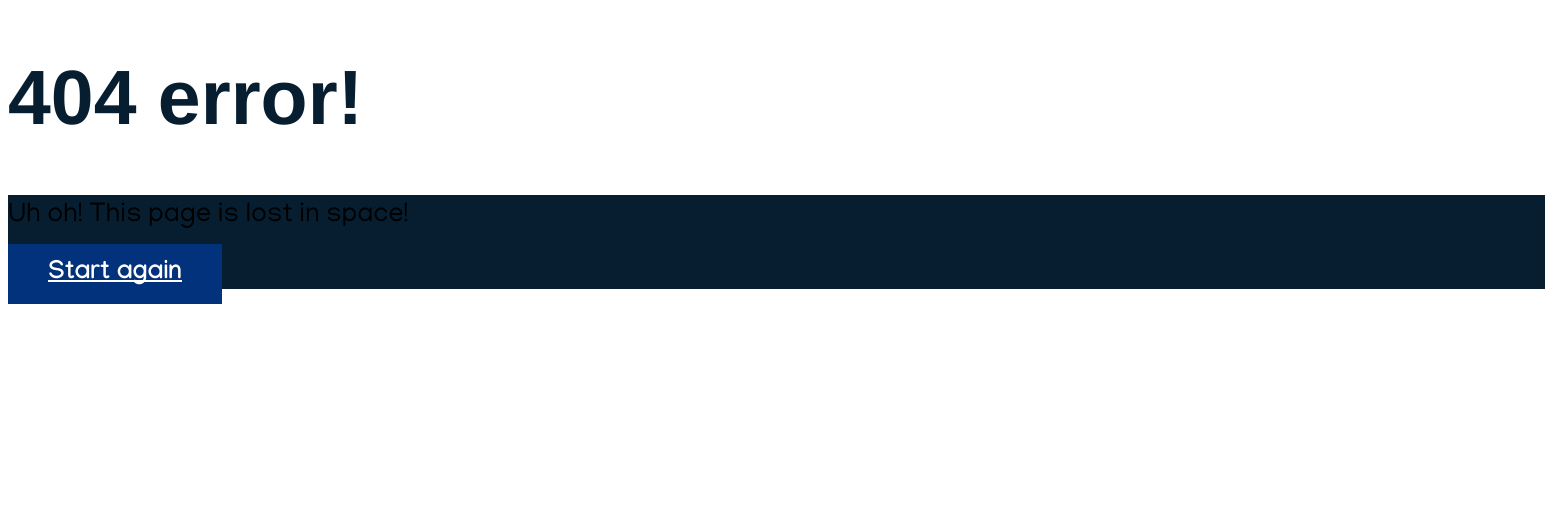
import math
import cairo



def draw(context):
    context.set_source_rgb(1, 1, 1)
    context.paint()
    context.set_source_rgb(7 / 255, 30 / 255, 49 / 255)
    context.rectangle(8, 195, 1537, 94)
    context.fill()
    context.set_source_rgb(3 / 255, 50 / 255, 124 / 255)
    context.rectangle(8, 244, 214, 60)
    context.fill()
    context.set_source_rgb(1, 1, 1)
    context.rectangle(48, 280, 134, 2)
    context.fill()
    context.select_font_face("Liberation Sans", cairo.FontSlant.NORMAL, cairo.FontWeight.BOLD)
    context.set_font_size(77)
    context.set_source_rgb(7 / 255, 30 / 255, 49 / 255)
    context.move_to(8, 124)
    context.show_text("404 error!")
    context.select_font_face("Manjari")
    context.set_font_size(27.25)
    context.set_source_rgb(0, 0, 0)
    context.move_to(8, 221)
    context.show_text("Uh oh! This page is lost in space!")
    context.select_font_face("Manjari", cairo.FontSlant.NORMAL, cairo.FontWeight.BOLD)
    context.set_font_size(25.5)
    context.set_source_rgb(1, 1, 1)
    context.move_to(48, 278)
    context.show_text("Start again")


surface = cairo.ImageSurface(cairo.Format.RGB24, 1553, 521)
context = cairo.Context(surface)
options = cairo.FontOptions()
options.set_hint_metrics(cairo.HintMetrics.OFF)
options.set_hint_style(cairo.HintStyle.NONE)
context.set_font_options(options)
context.set_miter_limit(4)
draw(context)
surface.write_to_png("out.png")
